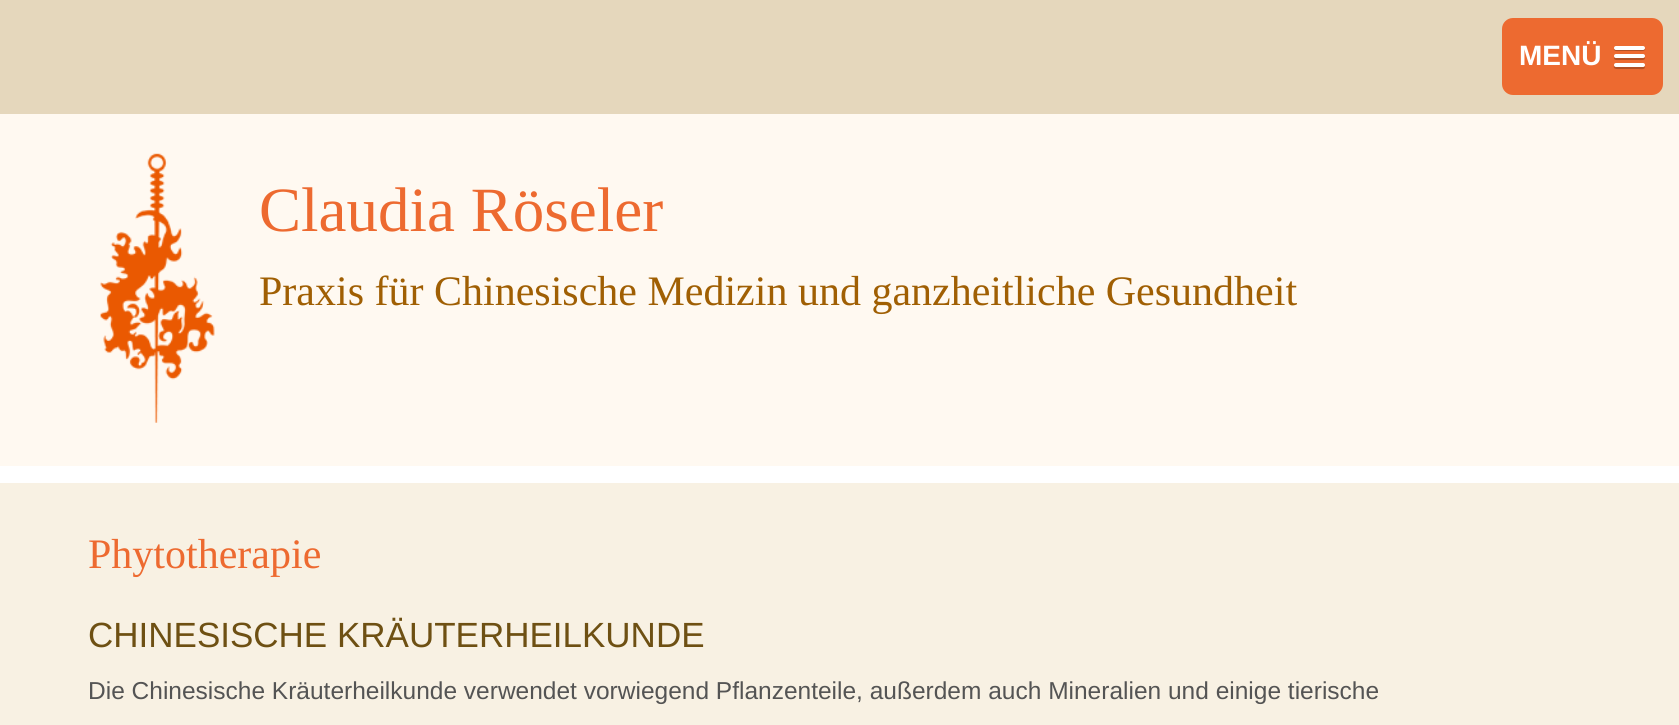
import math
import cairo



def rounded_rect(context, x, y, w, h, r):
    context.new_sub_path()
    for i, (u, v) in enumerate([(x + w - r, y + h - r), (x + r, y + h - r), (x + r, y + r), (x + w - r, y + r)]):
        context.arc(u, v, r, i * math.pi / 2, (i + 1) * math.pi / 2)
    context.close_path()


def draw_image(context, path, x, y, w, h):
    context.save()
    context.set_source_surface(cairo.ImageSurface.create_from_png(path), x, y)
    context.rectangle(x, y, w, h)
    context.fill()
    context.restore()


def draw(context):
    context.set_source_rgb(248 / 255, 241 / 255, 227 / 255)
    context.paint()
    context.set_source_rgb(229 / 255, 215 / 255, 188 / 255)
    context.rectangle(0, 0, 1679, 114)
    context.fill()
    context.set_source_rgb(237 / 255, 106 / 255, 48 / 255)
    rounded_rect(context, 1502, 18, 161, 77, 11)
    context.fill()
    context.set_source_rgb(178 / 255, 80 / 255, 36 / 255)
    context.new_path()
    context.move_to(1614, 48.5)
    context.curve_to(1613, 52, 1619.5, 51, 1620.5, 51)
    context.line_to(1638.5, 51)
    context.curve_to(1639.5, 51, 1646.5, 52, 1645, 48)
    context.line_to(1643.5, 49)
    context.line_to(1615, 49)
    context.close_path()
    context.fill()
    context.set_source_rgb(1, 1, 1)
    rounded_rect(context, 1614, 46, 31, 4, 2)
    context.fill()
    context.set_source_rgb(178 / 255, 80 / 255, 36 / 255)
    context.new_path()
    context.move_to(1614, 57.5)
    context.curve_to(1613, 61, 1619.5, 60, 1620.5, 60)
    context.line_to(1638.5, 60)
    context.curve_to(1639, 60, 1647, 61, 1644.5, 57)
    context.line_to(1643.5, 57.5)
    context.line_to(1615, 57.5)
    context.close_path()
    context.fill()
    context.set_source_rgb(1, 1, 1)
    rounded_rect(context, 1614, 54, 31, 4, 2)
    context.fill()
    context.set_source_rgb(178 / 255, 80 / 255, 36 / 255)
    context.new_path()
    context.move_to(1614, 66)
    context.curve_to(1612.5, 70, 1619.5, 69, 1620.5, 69)
    context.line_to(1638.5, 69)
    context.curve_to(1639.5, 69, 1644.5, 70, 1645, 67.5)
    context.line_to(1644.5, 66)
    context.line_to(1643.5, 66.5)
    context.curve_to(1641, 67, 1615, 67, 1614, 66)
    context.close_path()
    context.fill()
    context.set_source_rgb(1, 1, 1)
    rounded_rect(context, 1614, 63, 31, 4, 2)
    context.fill()
    context.set_source_rgb(1, 249 / 255, 241 / 255)
    context.rectangle(0, 114, 1679, 352)
    context.fill()
    draw_image(context, "images/1.png", 100, 153, 115, 270)
    context.set_source_rgb(1, 1, 1)
    context.rectangle(0, 466, 1679, 17)
    context.fill()
    context.select_font_face("Liberation Sans", cairo.FontSlant.NORMAL, cairo.FontWeight.BOLD)
    context.set_font_size(28)
    context.move_to(1519, 65)
    context.show_text("MENÜ")
    context.select_font_face("Liberation Serif")
    context.set_font_size(63)
    context.set_source_rgb(237 / 255, 106 / 255, 48 / 255)
    context.move_to(259, 231)
    context.show_text("Claudia Röseler")
    context.set_font_size(42)
    context.set_source_rgb(160 / 255, 95 / 255, 3 / 255)
    context.move_to(259, 305)
    context.show_text("Praxis für Chinesische Medizin und ganzheitliche Gesundheit")
    context.set_source_rgb(237 / 255, 106 / 255, 48 / 255)
    context.move_to(88, 568)
    context.show_text("Phytotherapie")
    context.select_font_face("Liberation Sans")
    context.set_font_size(35)
    context.set_source_rgb(110 / 255, 80 / 255, 19 / 255)
    context.move_to(88, 647)
    context.show_text("CHINESISCHE KRÄUTERHEILKUNDE")
    context.set_font_size(24.5)
    context.set_source_rgb(84 / 255, 84 / 255, 84 / 255)
    context.move_to(88, 699)
    context.show_text("Die Chinesische Kräuterheilkunde verwendet vorwiegend Pflanzenteile, außerdem auch Mineralien und einige tierische")


surface = cairo.ImageSurface(cairo.Format.RGB24, 1679, 725)
context = cairo.Context(surface)
options = cairo.FontOptions()
options.set_hint_metrics(cairo.HintMetrics.OFF)
options.set_hint_style(cairo.HintStyle.NONE)
context.set_font_options(options)
context.set_miter_limit(4)
draw(context)
surface.write_to_png("out.png")
